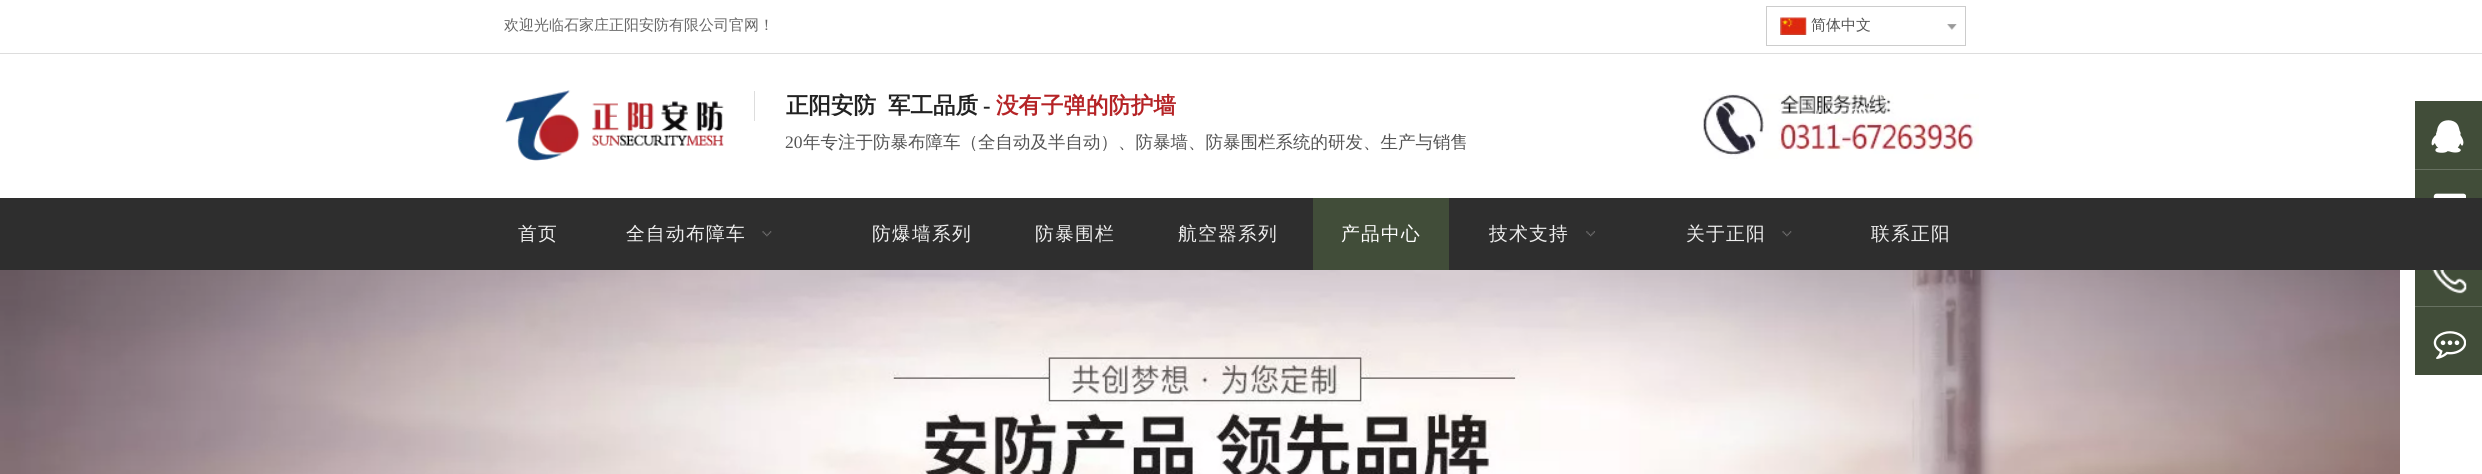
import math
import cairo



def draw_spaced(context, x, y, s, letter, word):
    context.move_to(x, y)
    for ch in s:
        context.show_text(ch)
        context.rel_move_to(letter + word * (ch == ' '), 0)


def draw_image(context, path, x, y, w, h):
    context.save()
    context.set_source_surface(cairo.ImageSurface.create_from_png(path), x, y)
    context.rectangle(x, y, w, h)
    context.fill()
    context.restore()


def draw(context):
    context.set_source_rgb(1, 1, 1)
    context.paint()
    context.set_source_rgb(221 / 255, 221 / 255, 221 / 255)
    context.rectangle(0, 53, 2482, 1)
    context.fill()
    context.rectangle(1766.5, 6.5, 199, 39)
    context.set_source_rgb(204 / 255, 204 / 255, 204 / 255)
    context.set_line_width(1)
    context.stroke()
    draw_image(context, "images/1.png", 1780, 17, 27, 18)
    draw_image(context, "images/2.png", 1947, 24, 10, 6)
    draw_image(context, "images/3.png", 505, 90, 219, 71)
    context.set_source_rgb(221 / 255, 221 / 255, 221 / 255)
    context.rectangle(754, 91, 1, 30)
    context.fill()
    draw_image(context, "images/4.png", 1703, 94, 276, 65)
    context.set_source_rgb(65 / 255, 77 / 255, 57 / 255)
    context.rectangle(2415, 101, 67, 274)
    context.fill()
    context.set_source_rgb(46 / 255, 46 / 255, 46 / 255)
    context.rectangle(0, 198, 2482, 72)
    context.fill()
    draw_image(context, "images/5.png", 762, 231, 10, 6)
    context.set_source_rgb(65 / 255, 77 / 255, 57 / 255)
    context.rectangle(1313, 198, 136, 72)
    context.fill()
    draw_image(context, "images/6.png", 1586, 231, 9, 6)
    draw_image(context, "images/5.png", 1782, 231, 10, 6)
    context.set_source_rgb(103 / 255, 113 / 255, 97 / 255)
    context.rectangle(2415, 169, 67, 1)
    context.fill()
    draw_image(context, "images/7.png", 2431, 120, 33, 33)
    draw_image(context, "images/8.png", 2433, 193, 33, 5)
    context.rectangle(2415, 306, 67, 1)
    context.fill()
    draw_image(context, "images/9.png", 2432, 270, 35, 24)
    draw_image(context, "images/10.png", 2433, 331, 33, 28)
    draw_image(context, "images/11.png", 0, 270, 2400, 204)
    context.select_font_face("WenQuanYi Zen Hei Medium")
    context.set_font_size(15)
    context.set_source_rgb(102 / 255, 102 / 255, 102 / 255)
    context.move_to(504, 30)
    context.show_text("欢迎光临石家庄正阳安防有限公司官网！")
    context.set_source_rgb(84 / 255, 84 / 255, 84 / 255)
    context.move_to(1811, 30)
    context.show_text("简体中文")
    context.select_font_face("WenQuanYi Zen Hei", cairo.FontSlant.NORMAL, cairo.FontWeight.BOLD)
    context.set_font_size(22.5)
    context.set_source_rgb(34 / 255, 34 / 255, 34 / 255)
    context.move_to(786, 113)
    context.show_text("正阳安防")
    context.move_to(888, 113)
    context.show_text("军工品质")
    context.select_font_face("Liberation Serif", cairo.FontSlant.NORMAL, cairo.FontWeight.BOLD)
    context.move_to(983, 113)
    context.show_text("-")
    context.select_font_face("WenQuanYi Zen Hei", cairo.FontSlant.NORMAL, cairo.FontWeight.BOLD)
    context.set_source_rgb(181 / 255, 35 / 255, 38 / 255)
    context.move_to(996, 113)
    context.show_text("没有子弹的防护墙")
    context.select_font_face("Liberation Serif")
    context.set_font_size(17.5)
    context.set_source_rgb(84 / 255, 84 / 255, 84 / 255)
    context.move_to(785, 148)
    context.show_text("20")
    context.select_font_face("WenQuanYi Zen Hei Medium")
    context.move_to(803, 148)
    context.show_text("年专注于防暴布障车（全自动及半自动）、防暴墙、防暴围栏系统的研发、生产与销售")
    context.set_font_size(18.75)
    context.set_source_rgb(238 / 255, 238 / 255, 238 / 255)
    draw_spaced(context, 518, 240, "首页", 1.25, 0)
    draw_spaced(context, 626, 240, "全自动布障车", 1.25, 0)
    draw_spaced(context, 872, 240, "防爆墙系列", 1.25, 0)
    draw_spaced(context, 1035, 240, "防暴围栏", 1.25, 0)
    draw_spaced(context, 1178, 240, "航空器系列", 1.25, 0)
    context.set_source_rgb(1, 1, 1)
    draw_spaced(context, 1341, 240, "产品中心", 1.25, 0)
    context.set_source_rgb(238 / 255, 238 / 255, 238 / 255)
    draw_spaced(context, 1489, 240, "技术支持", 1.25, 0)
    draw_spaced(context, 1686, 240, "关于正阳", 1.25, 0)
    draw_spaced(context, 1871, 240, "联系正阳", 1.25, 0)


surface = cairo.ImageSurface(cairo.Format.RGB24, 2482, 474)
context = cairo.Context(surface)
options = cairo.FontOptions()
options.set_hint_metrics(cairo.HintMetrics.OFF)
options.set_hint_style(cairo.HintStyle.NONE)
context.set_font_options(options)
context.set_miter_limit(4)
draw(context)
surface.write_to_png("out.png")
